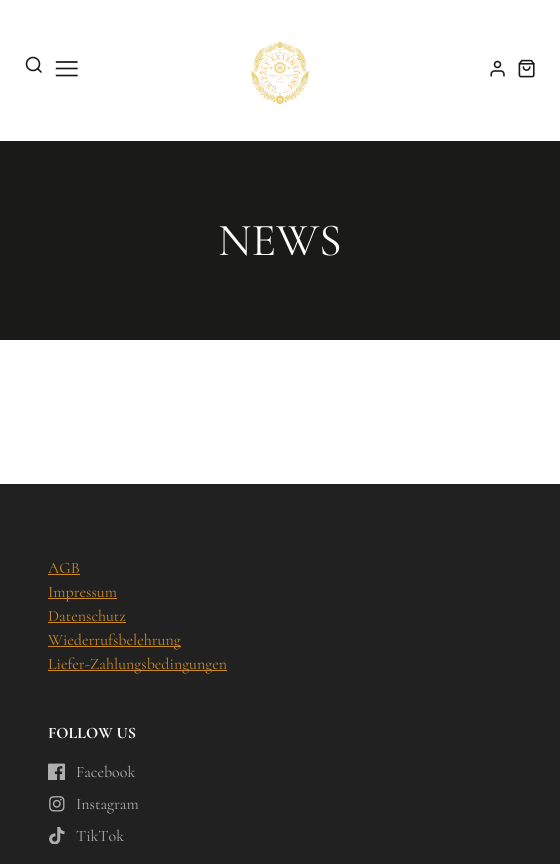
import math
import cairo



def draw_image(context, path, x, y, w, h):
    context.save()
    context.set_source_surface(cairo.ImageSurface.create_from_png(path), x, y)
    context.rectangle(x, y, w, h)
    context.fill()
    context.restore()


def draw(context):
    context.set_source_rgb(1, 1, 1)
    context.paint()
    context.arc(33, 64, 6.5, 0, 2 * math.pi)
    context.set_source_rgb(26 / 255, 27 / 255, 24 / 255)
    context.set_line_width(1.6)
    context.stroke()
    context.new_path()
    context.move_to(41, 72)
    context.line_to(37.5, 68.5)
    context.set_line_cap(cairo.LineCap.ROUND)
    context.set_line_join(cairo.LineJoin.ROUND)
    context.stroke()
    context.new_path()
    context.move_to(56.5, 68.5)
    context.line_to(77, 68.5)
    context.move_to(56.5, 62)
    context.line_to(77, 62)
    context.move_to(56.5, 75.5)
    context.line_to(77, 75.5)
    context.set_line_width(1.7)
    context.stroke()
    draw_image(context, "images/1.png", 251, 42, 58, 63)
    draw_image(context, "images/2.png", 490, 60, 15, 17)
    draw_image(context, "images/3.png", 518, 59, 17, 19)
    context.rectangle(0, 141, 560, 199)
    context.fill()
    context.set_source_rgb(33 / 255, 33 / 255, 33 / 255)
    context.rectangle(0, 484, 560, 380)
    context.fill()
    context.set_source_rgb(203 / 255, 138 / 255, 39 / 255)
    context.rectangle(48, 574, 32, 1)
    context.fill()
    context.rectangle(48, 598, 69, 1)
    context.fill()
    context.rectangle(48, 622, 78, 1)
    context.fill()
    context.rectangle(48, 646, 133, 1)
    context.fill()
    context.rectangle(48, 670, 179, 1)
    context.fill()
    draw_image(context, "images/4.png", 48, 763, 17, 17)
    draw_image(context, "images/5.png", 49, 796, 16, 16)
    draw_image(context, "images/6.png", 49, 827, 16, 17)
    context.select_font_face("Cormorant")
    context.set_font_size(46)
    context.set_source_rgb(1, 1, 1)
    context.move_to(218, 255)
    context.show_text("NEWS")
    context.set_font_size(16)
    context.set_source_rgb(203 / 255, 138 / 255, 39 / 255)
    context.move_to(48, 573)
    context.show_text("AGB")
    context.move_to(48, 597)
    context.show_text("Impressum")
    context.move_to(48, 621)
    context.show_text("Datenschutz")
    context.move_to(48, 645)
    context.show_text("Wiederrufsbelehrung")
    context.move_to(48, 669)
    context.show_text("Liefer-Zahlungsbedingungen")
    context.select_font_face("Cormorant", cairo.FontSlant.NORMAL, cairo.FontWeight.BOLD)
    context.set_source_rgb(1, 1, 1)
    context.move_to(48, 738)
    context.show_text("FOLLOW US")
    context.select_font_face("Cormorant")
    context.set_source_rgb(175 / 255, 175 / 255, 175 / 255)
    context.move_to(76, 777)
    context.show_text("Facebook")
    context.move_to(76, 809)
    context.show_text("Instagram")
    context.move_to(76, 841)
    context.show_text("TikTok")


surface = cairo.ImageSurface(cairo.Format.RGB24, 560, 864)
context = cairo.Context(surface)
options = cairo.FontOptions()
options.set_hint_metrics(cairo.HintMetrics.OFF)
options.set_hint_style(cairo.HintStyle.NONE)
context.set_font_options(options)
context.set_miter_limit(4)
draw(context)
surface.write_to_png("out.png")
